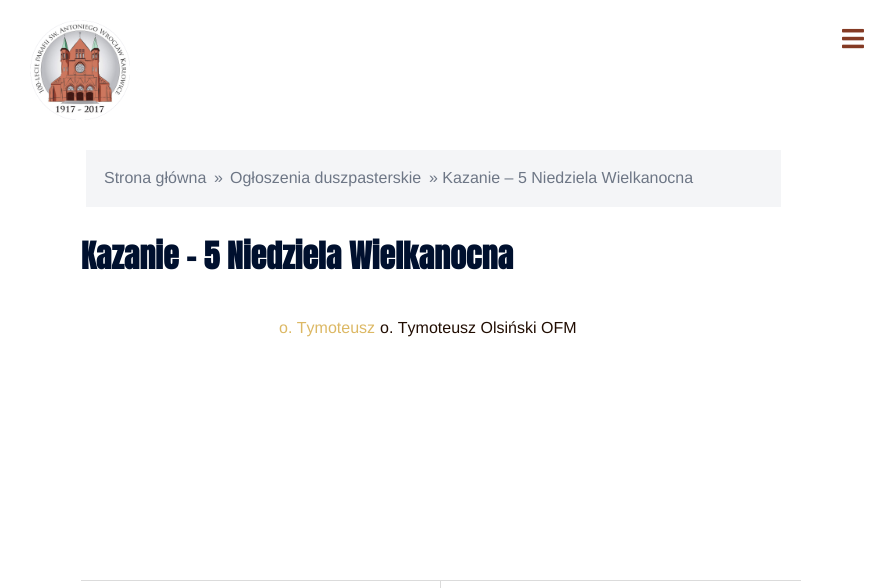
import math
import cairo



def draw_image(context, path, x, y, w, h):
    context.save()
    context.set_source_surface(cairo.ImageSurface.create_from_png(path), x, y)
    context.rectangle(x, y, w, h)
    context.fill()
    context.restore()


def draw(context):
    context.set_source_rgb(1, 1, 1)
    context.paint()
    draw_image(context, "images/1.png", 30, 20, 100, 100)
    draw_image(context, "images/2.png", 842, 28, 22, 21)
    context.set_source_rgb(244 / 255, 245 / 255, 247 / 255)
    context.rectangle(86, 150, 695, 57)
    context.fill()
    context.set_source_rgb(219 / 255, 219 / 255, 219 / 255)
    context.rectangle(81, 580, 720, 1)
    context.fill()
    context.rectangle(440, 581, 1, 7)
    context.fill()
    context.select_font_face("Liberation Sans")
    context.set_font_size(16)
    context.set_source_rgb(109 / 255, 118 / 255, 133 / 255)
    context.move_to(104, 183)
    context.show_text("Strona główna")
    context.move_to(214, 183)
    context.show_text("»")
    context.move_to(230, 183)
    context.show_text("Ogłoszenia duszpasterskie")
    context.move_to(429, 183)
    context.show_text("» Kazanie – 5 Niedziela Wielkanocna")
    context.select_font_face("Anton", cairo.FontSlant.NORMAL, cairo.FontWeight.BOLD)
    context.set_font_size(32)
    context.set_source_rgb(0, 16 / 255, 46 / 255)
    context.move_to(81, 269)
    context.show_text("Kazanie – 5 Niedziela Wielkanocna")
    context.select_font_face("Liberation Sans")
    context.set_font_size(16)
    context.set_source_rgb(220 / 255, 184 / 255, 100 / 255)
    context.move_to(279, 333)
    context.show_text("o. Tymoteusz")
    context.set_source_rgb(33 / 255, 13 / 255, 2 / 255)
    context.move_to(380, 333)
    context.show_text("o. Tymoteusz Olsiński OFM")


surface = cairo.ImageSurface(cairo.Format.RGB24, 882, 588)
context = cairo.Context(surface)
options = cairo.FontOptions()
options.set_hint_metrics(cairo.HintMetrics.OFF)
options.set_hint_style(cairo.HintStyle.NONE)
context.set_font_options(options)
context.set_miter_limit(4)
draw(context)
surface.write_to_png("out.png")
